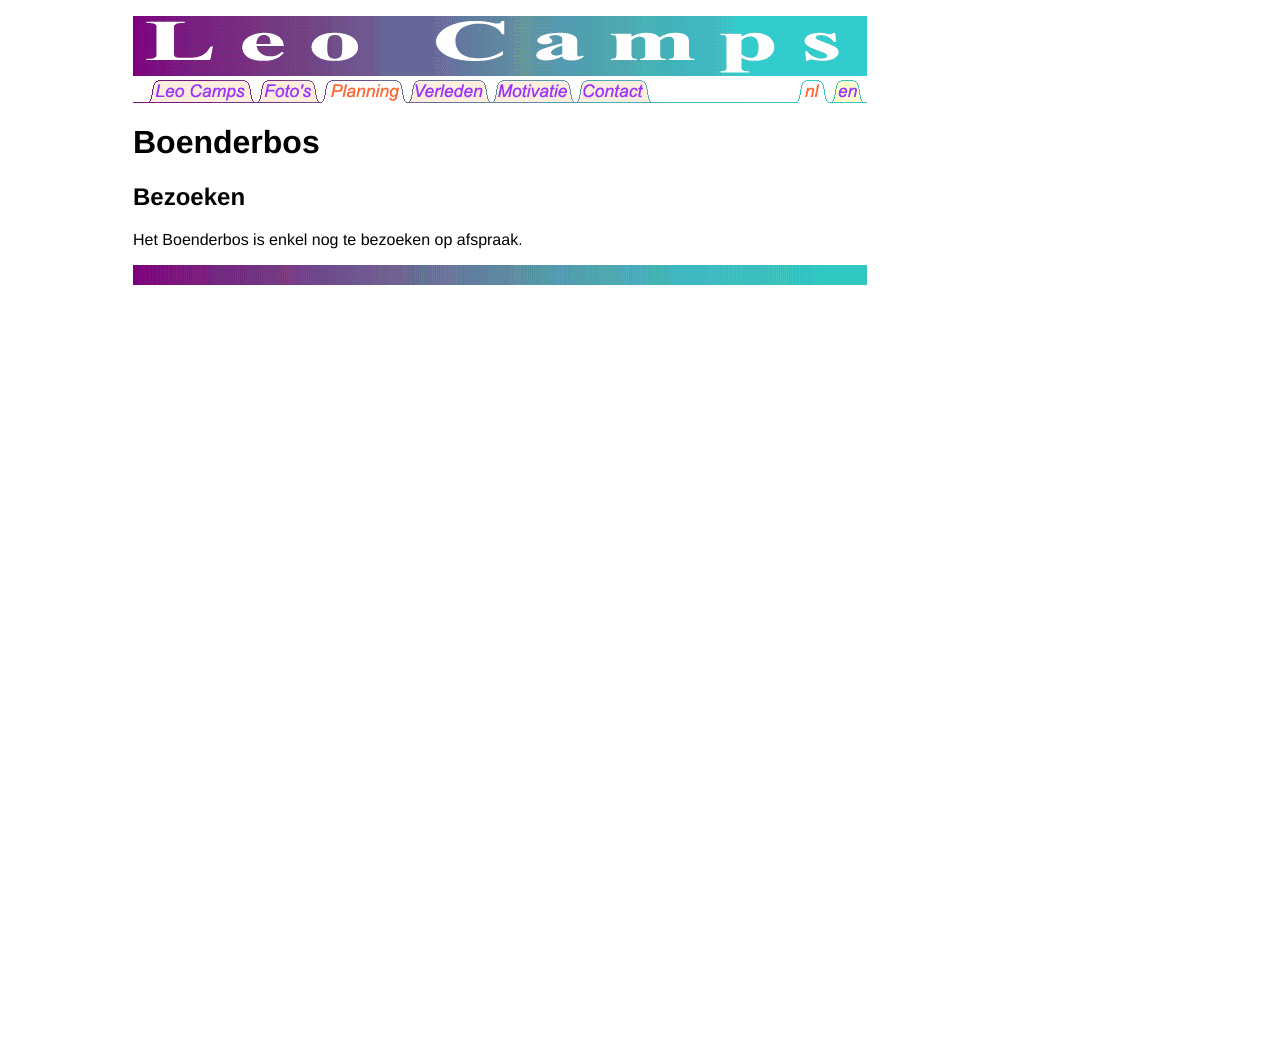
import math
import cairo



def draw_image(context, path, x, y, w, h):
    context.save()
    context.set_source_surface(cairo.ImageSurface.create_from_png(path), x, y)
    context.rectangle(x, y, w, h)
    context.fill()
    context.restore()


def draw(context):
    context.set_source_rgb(1, 1, 1)
    context.paint()
    draw_image(context, "images/1.png", 133, 16, 734, 60)
    draw_image(context, "images/2.png", 133, 80, 734, 23)
    draw_image(context, "images/3.png", 133, 265, 734, 20)
    context.select_font_face("Liberation Sans", cairo.FontSlant.NORMAL, cairo.FontWeight.BOLD)
    context.set_font_size(32)
    context.set_source_rgb(0, 0, 0)
    context.move_to(133, 153)
    context.show_text("Boenderbos")
    context.set_font_size(24)
    context.move_to(133, 205)
    context.show_text("Bezoeken")
    context.select_font_face("Liberation Sans")
    context.set_font_size(16)
    context.move_to(133, 245)
    context.show_text("Het Boenderbos is enkel nog te bezoeken op afspraak.")


surface = cairo.ImageSurface(cairo.Format.RGB24, 1269, 1045)
context = cairo.Context(surface)
options = cairo.FontOptions()
options.set_hint_metrics(cairo.HintMetrics.OFF)
options.set_hint_style(cairo.HintStyle.NONE)
context.set_font_options(options)
context.set_miter_limit(4)
draw(context)
surface.write_to_png("out.png")
